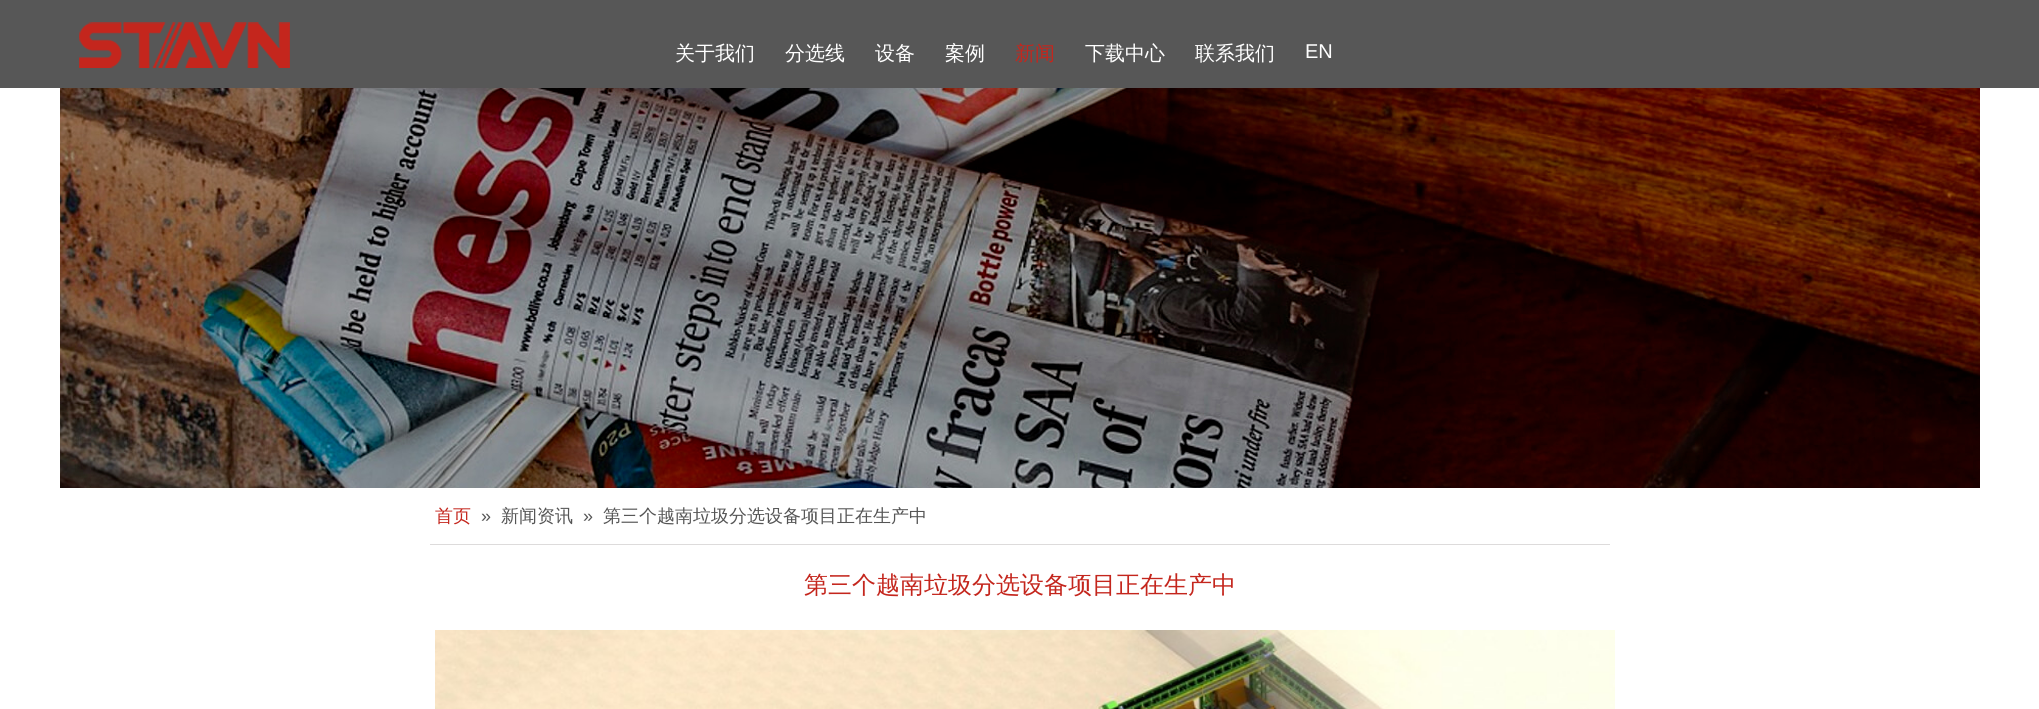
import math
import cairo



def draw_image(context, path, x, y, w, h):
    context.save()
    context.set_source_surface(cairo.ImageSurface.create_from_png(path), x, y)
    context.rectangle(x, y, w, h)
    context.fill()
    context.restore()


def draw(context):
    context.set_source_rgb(1, 1, 1)
    context.paint()
    context.set_source_rgb(87 / 255, 87 / 255, 87 / 255)
    context.rectangle(0, 0, 2039, 88)
    context.fill()
    draw_image(context, "images/1.png", 79, 22, 211, 46)
    draw_image(context, "images/2.png", 60, 88, 1920, 400)
    context.set_source_rgb(221 / 255, 219 / 255, 219 / 255)
    context.rectangle(430, 544, 1180, 1)
    context.fill()
    draw_image(context, "images/3.png", 435, 630, 1180, 79)
    context.select_font_face("WenQuanYi Zen Hei Medium")
    context.set_font_size(20)
    context.set_source_rgb(1, 1, 1)
    context.move_to(675, 60)
    context.show_text("关于我们")
    context.move_to(785, 60)
    context.show_text("分选线")
    context.move_to(875, 60)
    context.show_text("设备")
    context.move_to(945, 60)
    context.show_text("案例")
    context.set_source_rgb(196 / 255, 38 / 255, 29 / 255)
    context.move_to(1015, 60)
    context.show_text("新闻")
    context.set_source_rgb(1, 1, 1)
    context.move_to(1085, 60)
    context.show_text("下载中心")
    context.move_to(1195, 60)
    context.show_text("联系我们")
    context.select_font_face("Liberation Sans")
    context.move_to(1305, 58)
    context.show_text("EN")
    context.select_font_face("WenQuanYi Zen Hei Medium")
    context.set_font_size(18)
    context.set_source_rgb(196 / 255, 38 / 255, 29 / 255)
    context.move_to(435, 522)
    context.show_text("首页")
    context.select_font_face("Liberation Sans")
    context.set_source_rgb(85 / 255, 85 / 255, 85 / 255)
    context.move_to(481, 522)
    context.show_text("»")
    context.select_font_face("WenQuanYi Zen Hei Medium")
    context.move_to(501, 522)
    context.show_text("新闻资讯")
    context.select_font_face("Liberation Sans")
    context.move_to(583, 522)
    context.show_text("»")
    context.select_font_face("WenQuanYi Zen Hei Medium")
    context.move_to(603, 522)
    context.show_text("第三个越南垃圾分选设备项目正在生产中")
    context.set_font_size(24)
    context.set_source_rgb(196 / 255, 38 / 255, 29 / 255)
    context.move_to(804, 593)
    context.show_text("第三个越南垃圾分选设备项目正在生产中")


surface = cairo.ImageSurface(cairo.Format.RGB24, 2039, 709)
context = cairo.Context(surface)
options = cairo.FontOptions()
options.set_hint_metrics(cairo.HintMetrics.OFF)
options.set_hint_style(cairo.HintStyle.NONE)
context.set_font_options(options)
context.set_miter_limit(4)
draw(context)
surface.write_to_png("out.png")
